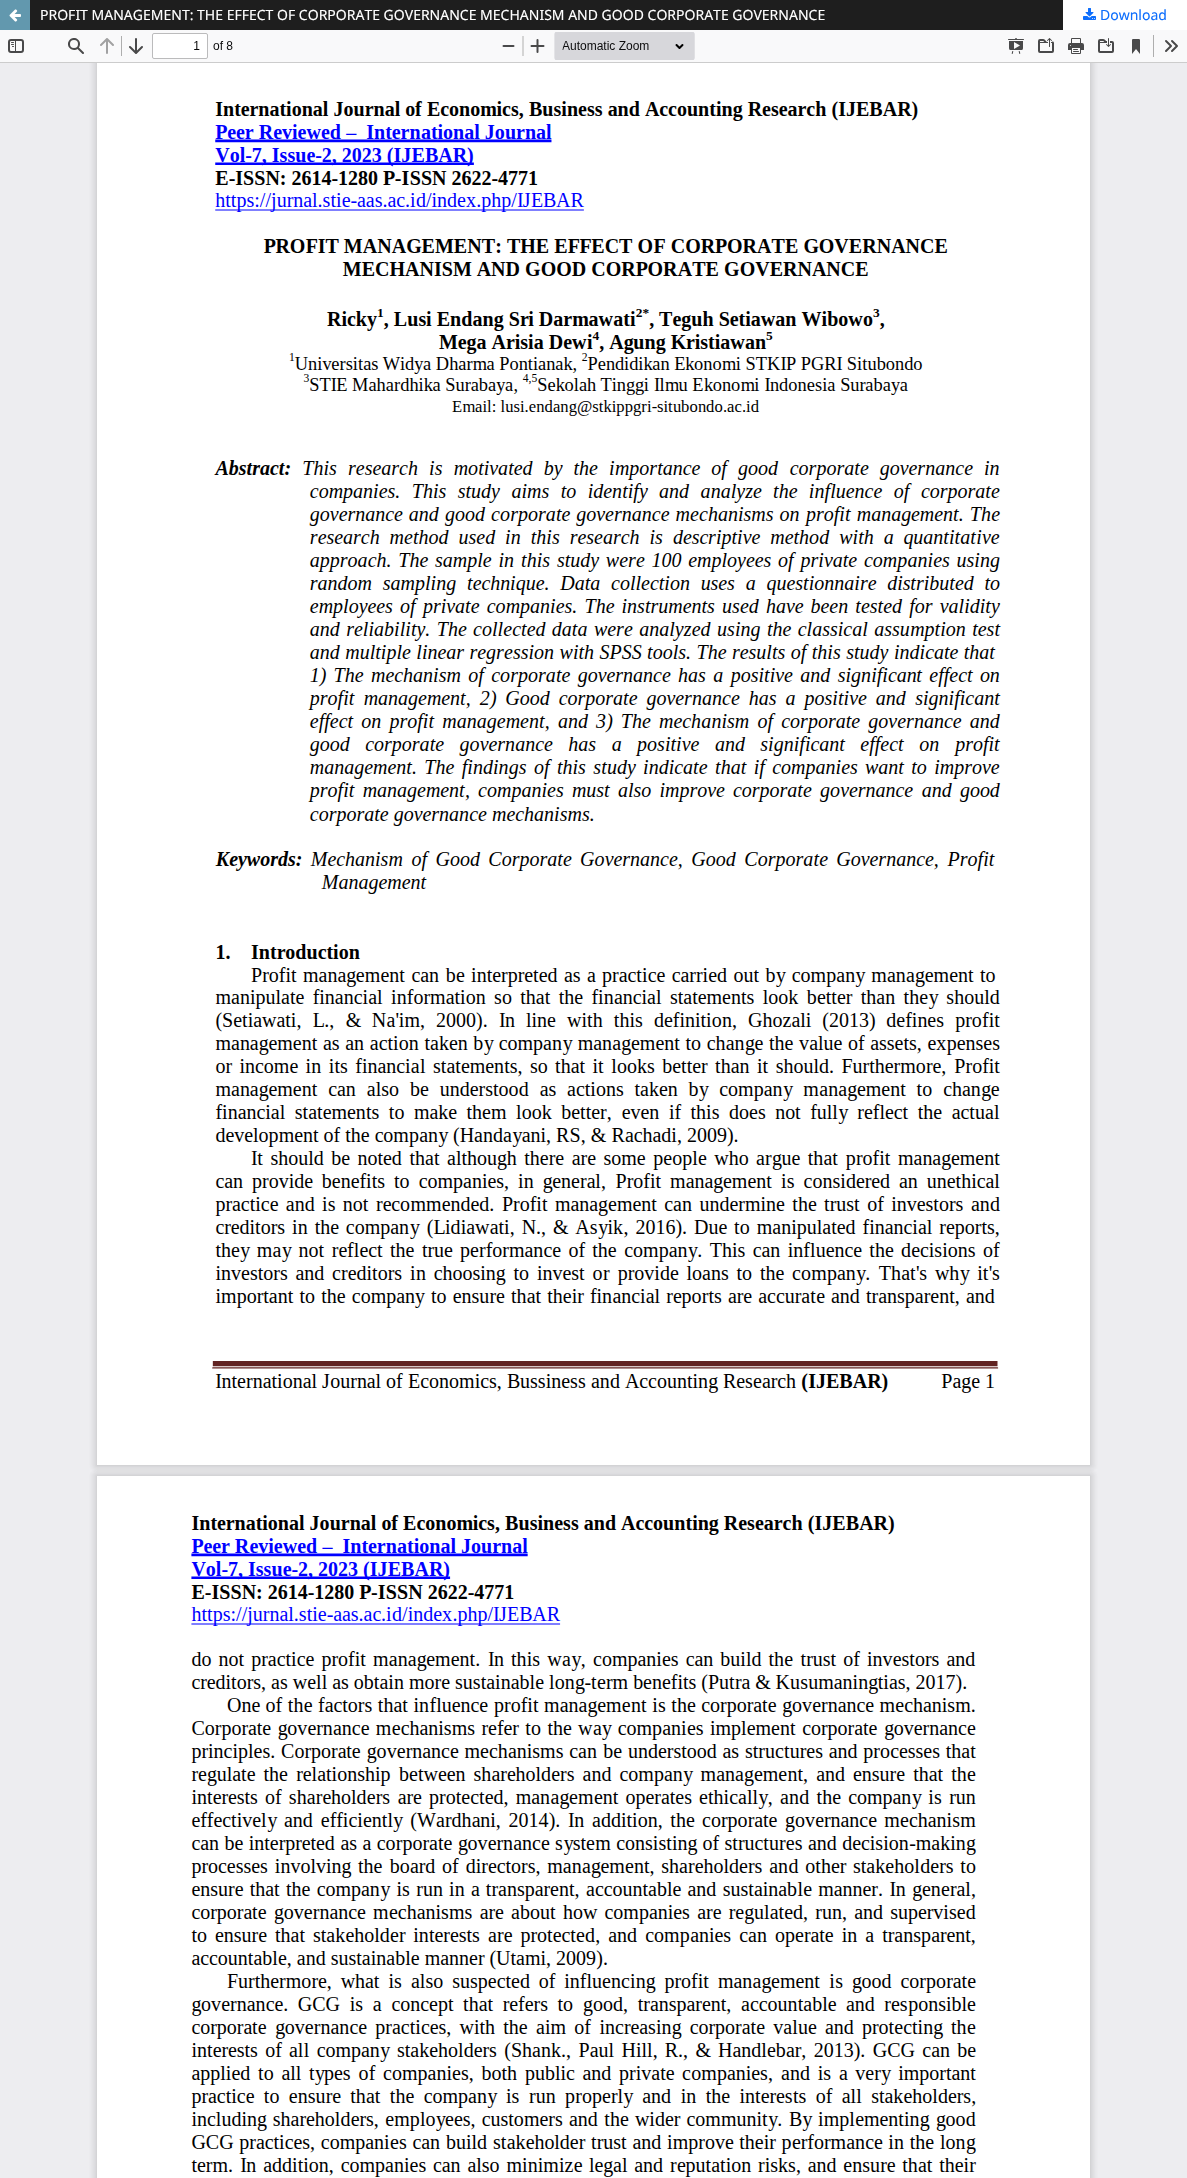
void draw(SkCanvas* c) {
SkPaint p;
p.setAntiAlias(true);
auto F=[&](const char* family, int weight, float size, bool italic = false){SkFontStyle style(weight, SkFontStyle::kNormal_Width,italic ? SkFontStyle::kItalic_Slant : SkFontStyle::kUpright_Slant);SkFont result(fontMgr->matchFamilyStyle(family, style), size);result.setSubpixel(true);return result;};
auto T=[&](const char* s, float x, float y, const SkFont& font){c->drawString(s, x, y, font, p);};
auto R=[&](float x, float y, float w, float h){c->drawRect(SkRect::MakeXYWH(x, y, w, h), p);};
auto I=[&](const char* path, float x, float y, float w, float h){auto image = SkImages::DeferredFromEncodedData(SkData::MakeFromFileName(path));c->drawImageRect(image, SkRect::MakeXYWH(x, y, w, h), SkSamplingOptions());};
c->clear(0xffffffff);
p.setColor(0xff1e1e1e);
R(30,0,1033,30);
p.setColor(0xff6298ae);
R(0,0,30,30);
I("1.png",9,9,12,13);
auto f1 = F("Noto Sans",400,14);
p.setColor(0xffffffff);
T("PROFIT MANAGEMENT: THE EFFECT OF CORPORATE GOVERNANCE MECHANISM AND GOOD CORPORATE GOVERNANCE",40,20,f1);
I("2.png",1083,8,13,12);
p.setColor(0xff0d6efd);
T("Download",1100,20,f1);
I("3.png",0,30,1187,2148);
}
